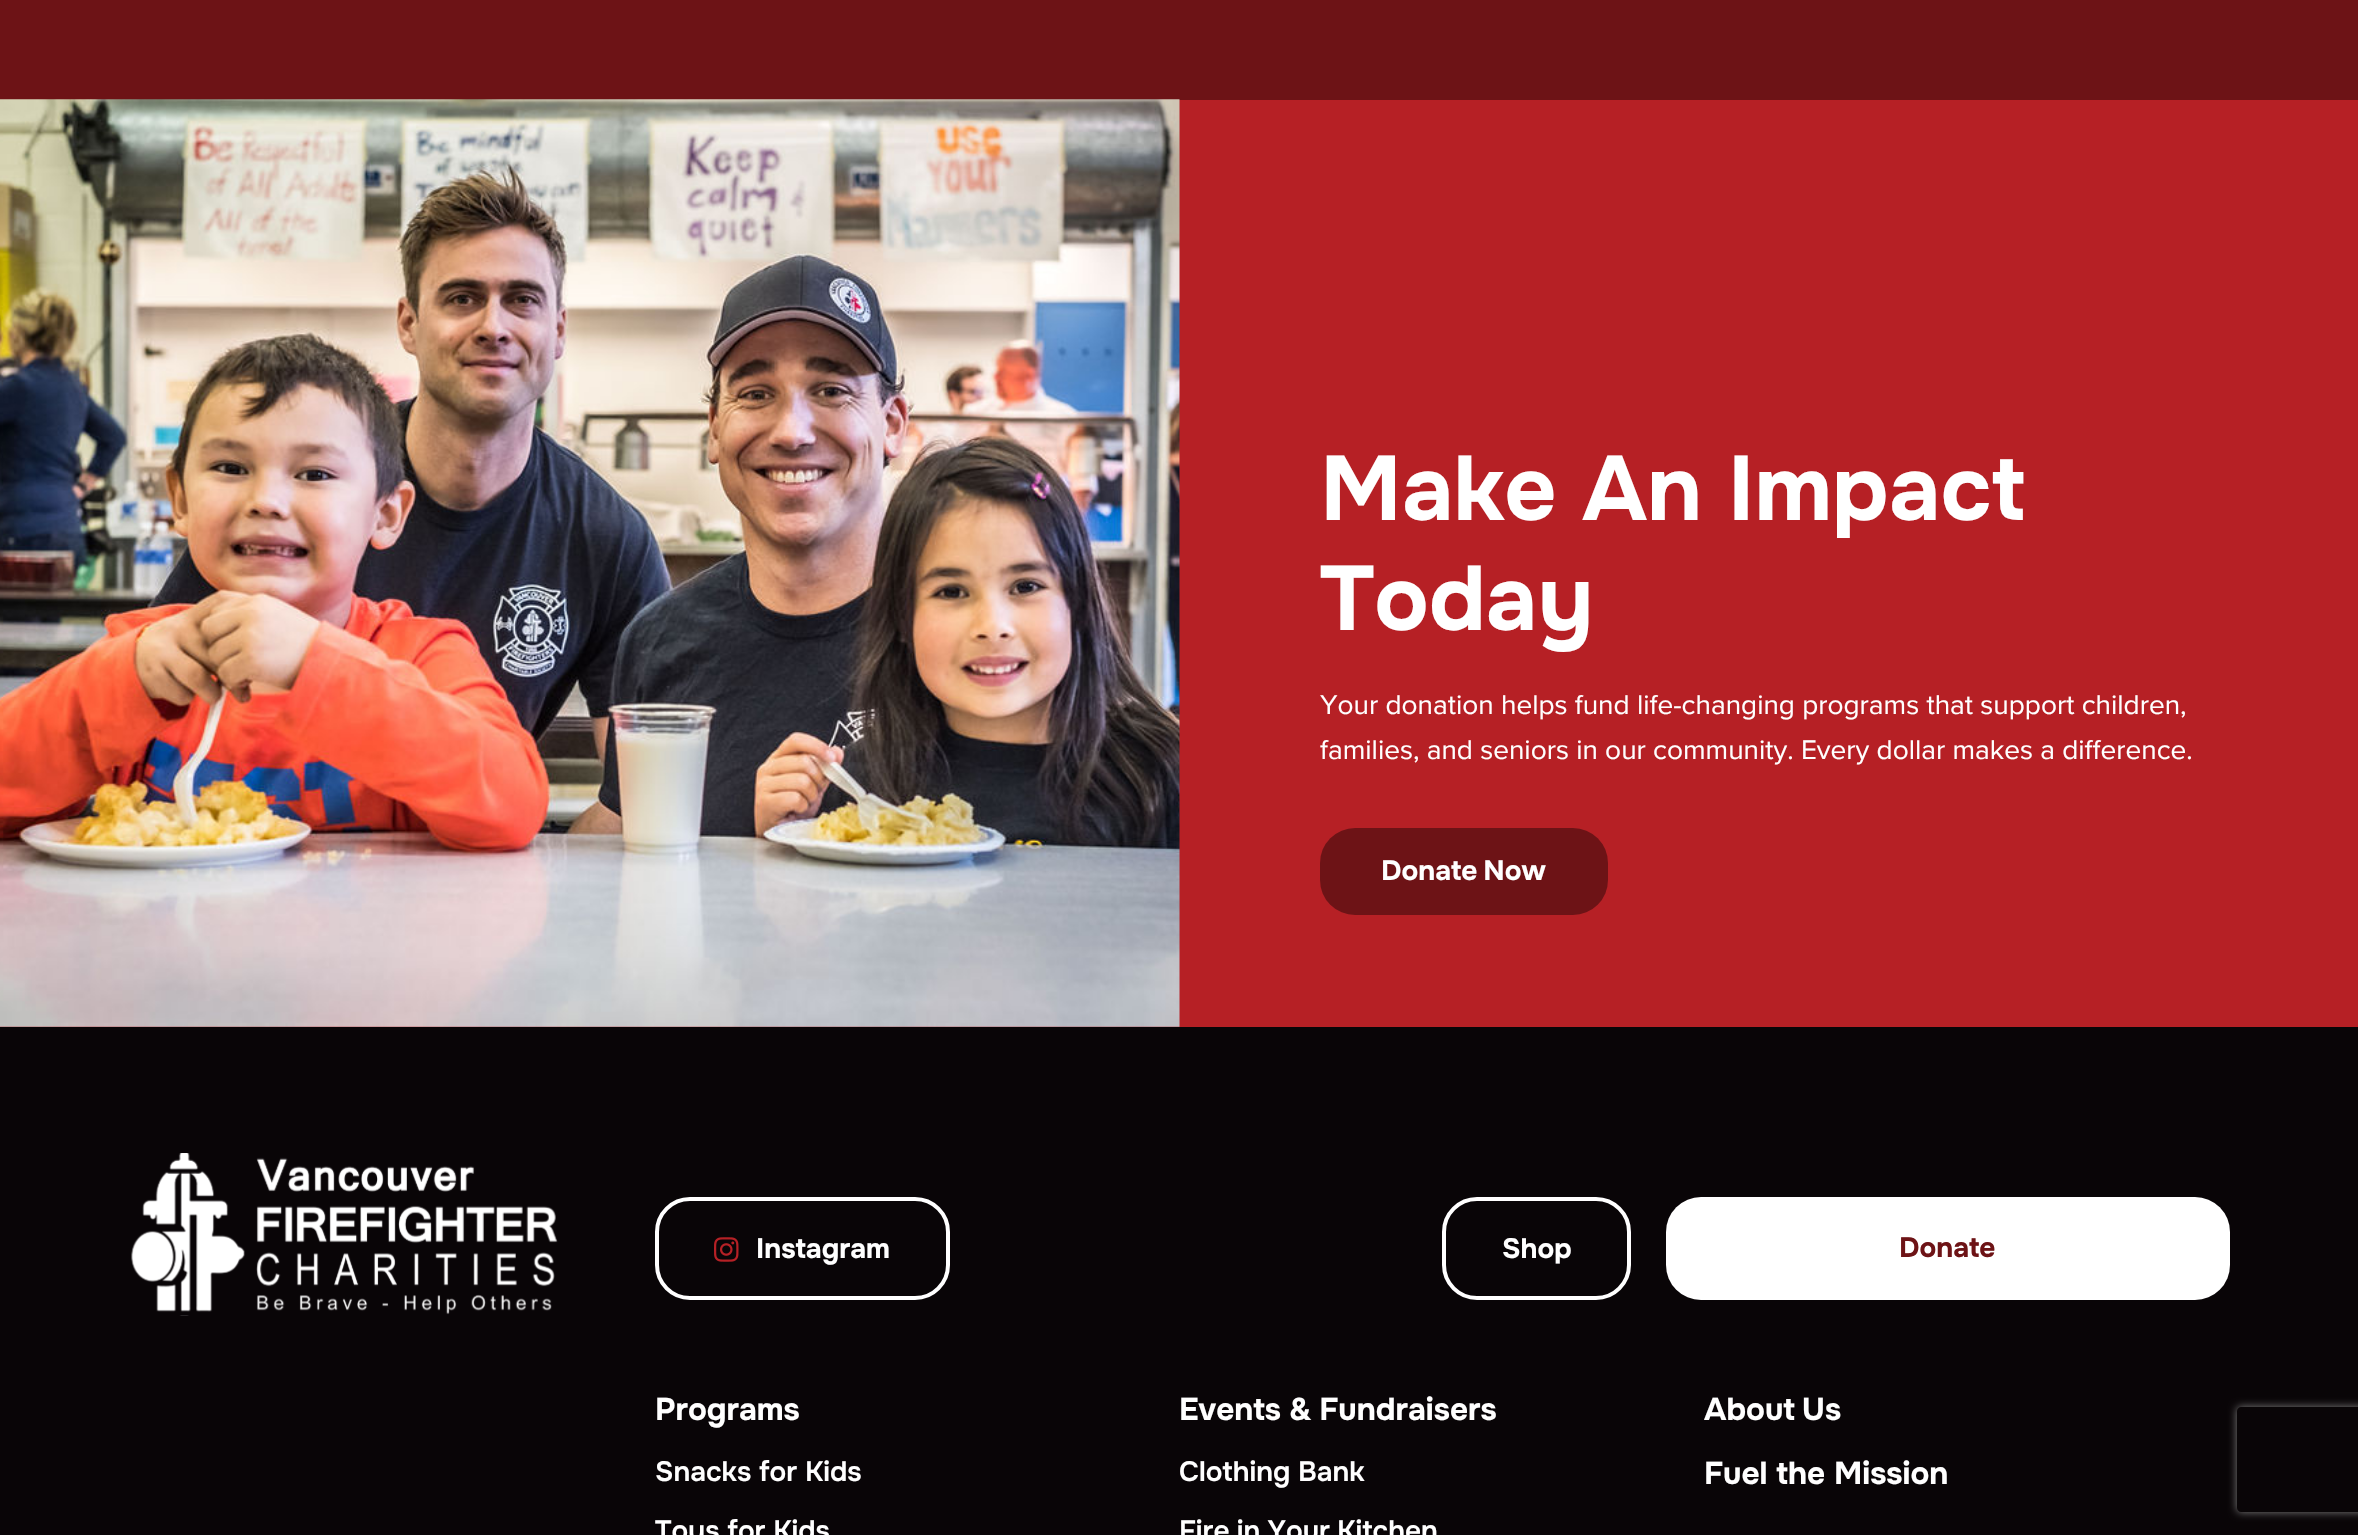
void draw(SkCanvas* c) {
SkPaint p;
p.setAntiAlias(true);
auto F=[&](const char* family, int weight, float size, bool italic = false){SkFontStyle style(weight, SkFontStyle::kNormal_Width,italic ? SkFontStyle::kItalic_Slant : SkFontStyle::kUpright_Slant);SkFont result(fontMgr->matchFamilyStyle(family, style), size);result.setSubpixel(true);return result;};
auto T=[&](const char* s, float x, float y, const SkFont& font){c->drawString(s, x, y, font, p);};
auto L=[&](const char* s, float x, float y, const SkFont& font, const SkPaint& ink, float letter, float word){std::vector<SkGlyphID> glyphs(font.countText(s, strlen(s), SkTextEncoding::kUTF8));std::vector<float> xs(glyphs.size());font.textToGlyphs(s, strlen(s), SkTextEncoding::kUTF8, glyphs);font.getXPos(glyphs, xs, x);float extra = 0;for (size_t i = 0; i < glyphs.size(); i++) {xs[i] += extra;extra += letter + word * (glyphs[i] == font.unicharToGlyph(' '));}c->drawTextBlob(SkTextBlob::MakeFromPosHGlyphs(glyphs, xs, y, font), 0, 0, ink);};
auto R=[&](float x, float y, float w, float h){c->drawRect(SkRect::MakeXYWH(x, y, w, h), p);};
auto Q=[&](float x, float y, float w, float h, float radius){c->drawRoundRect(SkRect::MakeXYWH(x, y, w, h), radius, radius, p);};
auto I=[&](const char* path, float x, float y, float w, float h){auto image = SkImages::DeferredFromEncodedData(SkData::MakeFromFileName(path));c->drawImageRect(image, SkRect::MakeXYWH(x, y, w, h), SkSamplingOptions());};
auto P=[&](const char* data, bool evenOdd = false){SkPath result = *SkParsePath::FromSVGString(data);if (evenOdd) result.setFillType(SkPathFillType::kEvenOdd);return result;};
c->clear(0xff6d1316);
p.setColor(0xffb62025);
R(0,100,2358,927);
I("1.png",0,99,1180,928);
auto f1 = F("Onest",700,91);
p.setColor(0xffffffff);
T("Make An Impact",1320,520,f1);
T("Today",1320,630,f1);
auto f2 = F("Proxima Nova",400,28);
T("Your donation helps fund life-changing programs that support children,",1320,714,f2);
T("families, and seniors in our community. Every dollar makes a difference.",1320,759,f2);
p.setColor(0xff6d1316);
Q(1320,828,288,87,35);
auto f3 = F("Onest",700,28);
p.setColor(0xffffffff);
L("Donate Now",1381,880,f3,p,0,-2);
p.setColor(0xff090507);
R(0,1027,2358,508);
I("2.png",131,1153,427,163);
p.setStroke(true);
p.setStrokeWidth(4);
p.setColor(0xffffffff);
c->drawRoundRect(SkRect::MakeXYWH(657,1199,291,99),33,33,p);
I("3.png",714,1237,25,25);
p.setStroke(false);
T("Instagram",756,1258,f3);
p.setStroke(true);
c->drawRoundRect(SkRect::MakeXYWH(1444,1199,185,99),33,33,p);
p.setStroke(false);
T("Shop",1502,1258,f3);
Q(1666,1197,564,103,35);
p.setColor(0xff6d1316);
T("Donate",1899,1257,f3);
auto f4 = F("Onest",700,31.5);
p.setColor(0xffffffff);
T("Programs",655,1420,f4);
auto f5 = F("Onest",600,28);
T("Snacks for Kids",655,1481,f5);
T("Toys for Kids",655,1540,f5);
L("Events & Fundraisers",1179,1420,f4,p,0,-1);
T("Clothing Bank",1179,1481,f5);
L("Fire in Your Kitchen",1179,1540,f5,p,0,-.5);
L("About Us",1704,1420,f4,p,0,-2);
T("Fuel the Mission",1704,1484,f4);
c->save();
c->clipPath(P("M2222 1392h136v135h-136zm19 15h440c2 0 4 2 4 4v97c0 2-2 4-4 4h-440c-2 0-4-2-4-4v-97c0-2 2-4 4-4z",true),true);
p.setColor(0xff808080);
p.setMaskFilter(SkMaskFilter::MakeBlur(kNormal_SkBlurStyle, 4.5));
c->drawRoundRect(SkRect::MakeXYWH(2237,1407,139,105),4,4,p);
p.setMaskFilter(nullptr);
c->restore();
}
